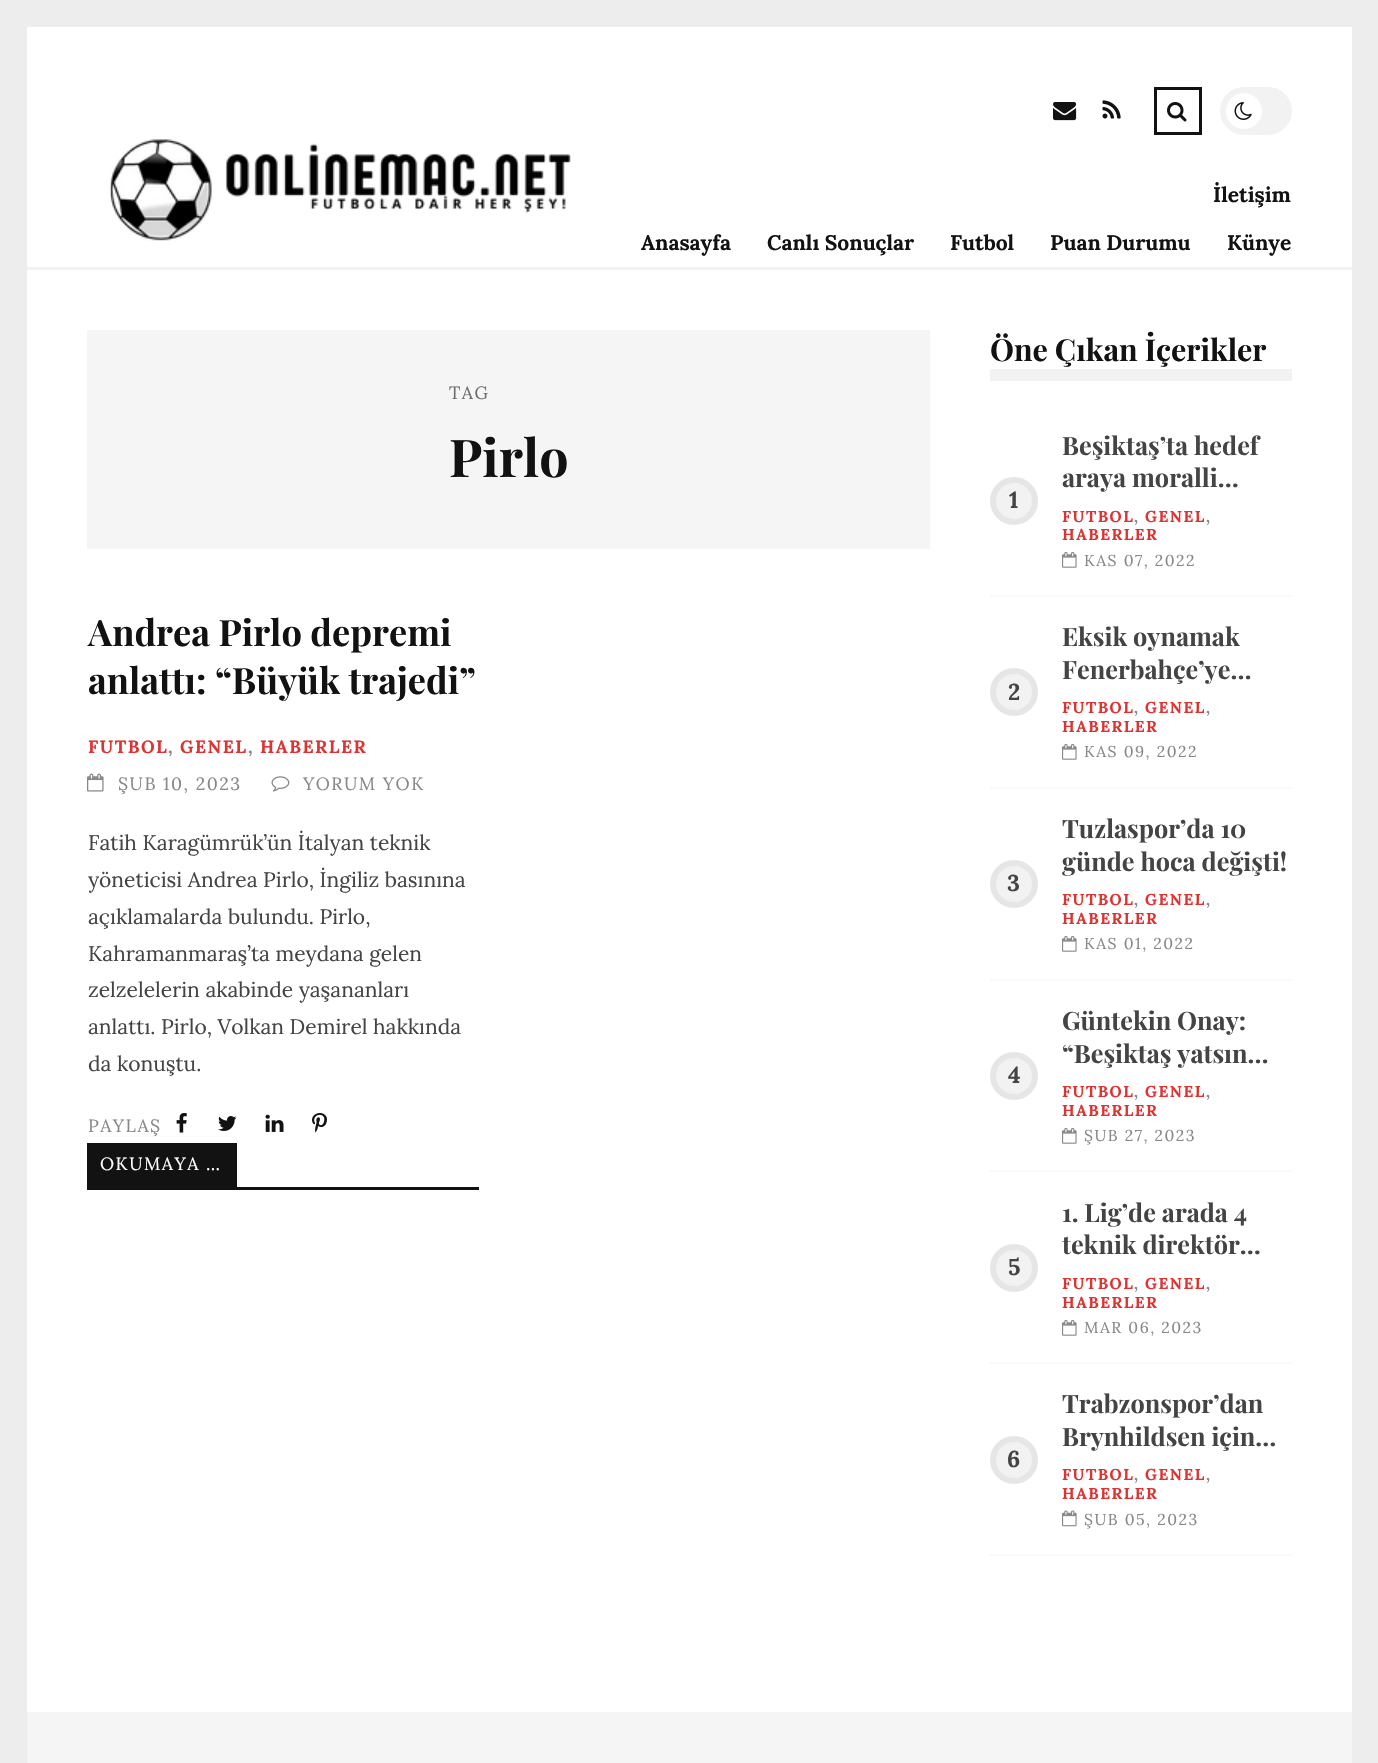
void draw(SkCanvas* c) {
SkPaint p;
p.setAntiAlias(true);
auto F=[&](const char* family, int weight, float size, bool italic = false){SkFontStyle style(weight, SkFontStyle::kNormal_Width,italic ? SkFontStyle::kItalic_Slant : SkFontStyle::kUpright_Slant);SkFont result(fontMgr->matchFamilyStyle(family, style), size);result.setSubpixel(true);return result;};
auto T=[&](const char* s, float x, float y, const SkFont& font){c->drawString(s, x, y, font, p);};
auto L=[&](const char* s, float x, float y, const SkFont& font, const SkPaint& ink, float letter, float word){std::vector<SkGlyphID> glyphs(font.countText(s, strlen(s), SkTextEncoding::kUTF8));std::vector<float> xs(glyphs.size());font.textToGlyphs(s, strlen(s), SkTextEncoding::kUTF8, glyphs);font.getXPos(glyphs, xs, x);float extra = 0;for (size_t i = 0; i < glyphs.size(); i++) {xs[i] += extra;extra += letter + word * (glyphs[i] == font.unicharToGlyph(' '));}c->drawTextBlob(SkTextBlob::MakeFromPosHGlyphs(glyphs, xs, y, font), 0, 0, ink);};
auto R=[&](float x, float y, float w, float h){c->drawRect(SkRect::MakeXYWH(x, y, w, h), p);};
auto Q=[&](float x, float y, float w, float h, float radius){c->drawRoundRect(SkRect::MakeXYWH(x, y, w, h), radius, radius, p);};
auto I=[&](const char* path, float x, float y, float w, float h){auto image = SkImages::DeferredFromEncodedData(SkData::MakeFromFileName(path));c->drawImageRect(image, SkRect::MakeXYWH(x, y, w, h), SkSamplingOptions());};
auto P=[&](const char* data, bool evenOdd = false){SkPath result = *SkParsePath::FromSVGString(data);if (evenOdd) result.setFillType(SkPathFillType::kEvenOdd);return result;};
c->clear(0xffededed);
p.setColor(0xffffffff);
R(27,27,1325,1685);
p.setColor(0xfff2f2f2);
R(27,267,1325,3);
I("1.png",109,139,462,102);
I("2.png",1053,102,24,19);
I("3.png",1102,100,19,19);
p.setStroke(true);
p.setStrokeWidth(3);
p.setColor(0xff121212);
c->drawRect(SkRect::MakeXYWH(1155.5,88.5,45,45),p);
I("4.png",1167,102,20,20);
p.setStroke(false);
p.setColor(0xfff2f2f2);
Q(1220,87,72,48,24);
p.setColor(0xffffffff);
c->drawCircle(1244,111,18,p);
I("5.png",1234,102,18,18);
auto f1 = F("Lora",700,21);
p.setColor(0xff121212);
T("İletişim",1213,202,f1);
T("Anasayfa",641,250,f1);
T("Canlı Sonuçlar",767,250,f1);
T("Futbol",950,250,f1);
T("Puan Durumu",1050,250,f1);
T("Künye",1227,250,f1);
p.setColor(0xfff5f5f5);
R(87,330,843,219);
auto f2 = F("Lora",400,17.75);
p.setColor(0xff6d6d6d);
L("TAG",449,399,f2,p,1.5,0);
auto f3 = F("Playfair Display",700,52);
p.setColor(0xff121212);
T("Pirlo",449,477,f3);
auto f4 = F("Playfair Display",700,36.25);
T("Andrea Pirlo depremi",88,646,f4);
T("anlattı: “Büyük trajedi”",88,694,f4);
auto f5 = F("Lora",700,17.75);
p.setColor(0xffdd3333);
L("FUTBOL",88,753,f5,p,1.5,0);
p.setColor(0xff888888);
L(",",168,753,f5,p,1.5,0);
p.setColor(0xffdd3333);
L("GENEL",180,753,f5,p,1.5,0);
p.setColor(0xff888888);
L(",",248,753,f5,p,1.5,0);
p.setColor(0xffdd3333);
L("HABERLER",260,753,f5,p,1.5,0);
I("6.png",87,773,17,19);
p.setColor(0xff888888);
L("ŞUB 10, 2023",118,790,f2,p,1.5,0);
I("7.png",271,776,19,16);
L("YORUM YOK",303,790,f2,p,1.5,0);
auto f6 = F("Lora",400,21);
p.setColor(0xff444444);
T("Fatih Karagümrük’ün İtalyan teknik",88,850,f6);
T("yöneticisi Andrea Pirlo, İngiliz basınına",88,887,f6);
T("açıklamalarda bulundu. Pirlo,",88,924,f6);
T("Kahramanmaraş’ta meydana gelen",88,961,f6);
T("zelzelelerin akabinde yaşananları",88,997,f6);
T("anlattı. Pirlo, Volkan Demirel hakkında",88,1034,f6);
T("da konuştu.",88,1071,f6);
p.setColor(0xff121212);
R(87,1187,392,3);
p.setColor(0xff888888);
L("PAYLAŞ",88,1132,f2,p,1.5,0);
I("8.png",176,1113,11,20);
I("9.png",218,1116,19,15);
I("10.png",265,1114,19,18);
I("11.png",312,1113,15,20);
p.setColor(0xff121212);
R(87,1143,150,44);
p.setColor(0xffffffff);
L("OKUMAYA …",100,1170,f2,p,1.5,0);
p.setColor(0xfff2f2f2);
R(990,369,302,12);
auto f7 = F("Playfair Display",700,30.25);
p.setColor(0xff121212);
T("Öne Çıkan İçerikler",990,361,f7);
p.setStroke(true);
p.setStrokeWidth(1.5);
p.setColor(0xfff2f2f2);
p.setPathEffect(SkDashPathEffect::Make({{1.5f,1.5f}}, 0));
c->drawPath(P("M990 596h301.5"),p);
p.setPathEffect(nullptr);
p.setStroke(false);
c->drawCircle(1014,501,24,p);
p.setStroke(true);
p.setStrokeWidth(6);
p.setColor(0x1a808080);
c->drawCircle(1014,501,21,p);
auto f8 = F("Lora",700,23);
p.setStroke(false);
p.setColor(0xff444444);
T("1",1009,508,f8);
auto f9 = F("Playfair Display",700,25.25);
T("Beşiktaş’ta hedef",1062,455,f9);
T("araya moralli…",1062,487,f9);
auto f10 = F("Lora",700,15.75);
p.setColor(0xffdd3333);
L("FUTBOL",1062,522,f10,p,1.5,0);
p.setColor(0xff888888);
L(",",1134,522,f10,p,1.5,0);
p.setColor(0xffdd3333);
L("GENEL",1145,522,f10,p,1.5,0);
p.setColor(0xff888888);
L(",",1206,522,f10,p,1.5,0);
p.setColor(0xffdd3333);
L("HABERLER",1062,540,f10,p,1.5,0);
I("12.png",1062,552,15,16);
auto f11 = F("Lora",400,15.75);
p.setColor(0xff888888);
L("KAS 07, 2022",1084,566,f11,p,1.5,0);
p.setStroke(true);
p.setStrokeWidth(1.5);
p.setColor(0xfff2f2f2);
p.setPathEffect(SkDashPathEffect::Make({{1.5f,1.5f}}, 0));
c->drawPath(P("M990 788h301.5"),p);
p.setPathEffect(nullptr);
p.setStroke(false);
c->drawCircle(1014,692,24,p);
p.setStroke(true);
p.setStrokeWidth(6);
p.setColor(0x1a808080);
c->drawCircle(1014,692,21,p);
p.setStroke(false);
p.setColor(0xff444444);
T("2",1008,700,f8);
T("Eksik oynamak",1062,646,f9);
T("Fenerbahçe’ye…",1062,679,f9);
p.setColor(0xffdd3333);
L("FUTBOL",1062,713,f10,p,1.5,0);
p.setColor(0xff888888);
L(",",1134,713,f10,p,1.5,0);
p.setColor(0xffdd3333);
L("GENEL",1145,713,f10,p,1.5,0);
p.setColor(0xff888888);
L(",",1206,713,f10,p,1.5,0);
p.setColor(0xffdd3333);
L("HABERLER",1062,732,f10,p,1.5,0);
I("12.png",1062,744,15,16);
p.setColor(0xff888888);
L("KAS 09, 2022",1084,757,f11,p,1.5,0);
p.setStroke(true);
p.setStrokeWidth(1.5);
p.setColor(0xfff2f2f2);
p.setPathEffect(SkDashPathEffect::Make({{1.5f,1.5f}}, 0));
c->drawPath(P("M990 980h301.5"),p);
p.setPathEffect(nullptr);
p.setStroke(false);
c->drawCircle(1014,884,24,p);
p.setStroke(true);
p.setStrokeWidth(6);
p.setColor(0x1a808080);
c->drawCircle(1014,884,21,p);
p.setStroke(false);
p.setColor(0xff444444);
T("3",1007,891,f8);
T("Tuzlaspor’da 10",1062,838,f9);
T("günde hoca değişti!",1062,871,f9);
p.setColor(0xffdd3333);
L("FUTBOL",1062,905,f10,p,1.5,0);
p.setColor(0xff888888);
L(",",1134,905,f10,p,1.5,0);
p.setColor(0xffdd3333);
L("GENEL",1145,905,f10,p,1.5,0);
p.setColor(0xff888888);
L(",",1206,905,f10,p,1.5,0);
p.setColor(0xffdd3333);
L("HABERLER",1062,924,f10,p,1.5,0);
I("12.png",1062,936,15,16);
p.setColor(0xff888888);
L("KAS 01, 2022",1084,949,f11,p,1.5,0);
p.setStroke(true);
p.setStrokeWidth(1.5);
p.setColor(0xfff2f2f2);
p.setPathEffect(SkDashPathEffect::Make({{1.5f,1.5f}}, 0));
c->drawPath(P("M990 1171h301.5"),p);
p.setPathEffect(nullptr);
p.setStroke(false);
c->drawCircle(1014,1076,24,p);
p.setStroke(true);
p.setStrokeWidth(6);
p.setColor(0x1a808080);
c->drawCircle(1014,1076,21,p);
p.setStroke(false);
p.setColor(0xff444444);
T("4",1008,1083,f8);
T("Güntekin Onay:",1062,1030,f9);
T("“Beşiktaş yatsın…",1062,1063,f9);
p.setColor(0xffdd3333);
L("FUTBOL",1062,1097,f10,p,1.5,0);
p.setColor(0xff888888);
L(",",1134,1097,f10,p,1.5,0);
p.setColor(0xffdd3333);
L("GENEL",1145,1097,f10,p,1.5,0);
p.setColor(0xff888888);
L(",",1206,1097,f10,p,1.5,0);
p.setColor(0xffdd3333);
L("HABERLER",1062,1116,f10,p,1.5,0);
I("12.png",1062,1128,15,16);
p.setColor(0xff888888);
L("ŞUB 27, 2023",1084,1141,f11,p,1.5,0);
p.setStroke(true);
p.setStrokeWidth(1.5);
p.setColor(0xfff2f2f2);
p.setPathEffect(SkDashPathEffect::Make({{1.5f,1.5f}}, 0));
c->drawPath(P("M990 1363h301.5"),p);
p.setPathEffect(nullptr);
p.setStroke(false);
c->drawCircle(1014,1268,24,p);
p.setStroke(true);
p.setStrokeWidth(6);
p.setColor(0x1a808080);
c->drawCircle(1014,1268,21,p);
p.setStroke(false);
p.setColor(0xff444444);
T("5",1008,1275,f8);
T("1. Lig’de arada 4",1062,1222,f9);
T("teknik direktör…",1062,1254,f9);
p.setColor(0xffdd3333);
L("FUTBOL",1062,1289,f10,p,1.5,0);
p.setColor(0xff888888);
L(",",1134,1289,f10,p,1.5,0);
p.setColor(0xffdd3333);
L("GENEL",1145,1289,f10,p,1.5,0);
p.setColor(0xff888888);
L(",",1206,1289,f10,p,1.5,0);
p.setColor(0xffdd3333);
L("HABERLER",1062,1308,f10,p,1.5,0);
I("12.png",1062,1320,15,16);
p.setColor(0xff888888);
L("MAR 06, 2023",1084,1333,f11,p,1.5,0);
p.setStroke(true);
p.setStrokeWidth(1.5);
p.setColor(0xfff2f2f2);
p.setPathEffect(SkDashPathEffect::Make({{1.5f,1.5f}}, 0));
c->drawPath(P("M990 1555h301.5"),p);
p.setPathEffect(nullptr);
p.setStroke(false);
c->drawCircle(1014,1460,24,p);
p.setStroke(true);
p.setStrokeWidth(6);
p.setColor(0x1a808080);
c->drawCircle(1014,1460,21,p);
p.setStroke(false);
p.setColor(0xff444444);
T("6",1007,1467,f8);
T("Trabzonspor’dan",1062,1413,f9);
T("Brynhildsen için…",1062,1446,f9);
p.setColor(0xffdd3333);
L("FUTBOL",1062,1480,f10,p,1.5,0);
p.setColor(0xff888888);
L(",",1134,1480,f10,p,1.5,0);
p.setColor(0xffdd3333);
L("GENEL",1145,1480,f10,p,1.5,0);
p.setColor(0xff888888);
L(",",1206,1480,f10,p,1.5,0);
p.setColor(0xffdd3333);
L("HABERLER",1062,1499,f10,p,1.5,0);
I("13.png",1062,1510,15,17);
p.setColor(0xff888888);
L("ŞUB 05, 2023",1084,1525,f11,p,1.5,0);
p.setColor(0xfff5f5f5);
R(27,1712,1325,51);
}
